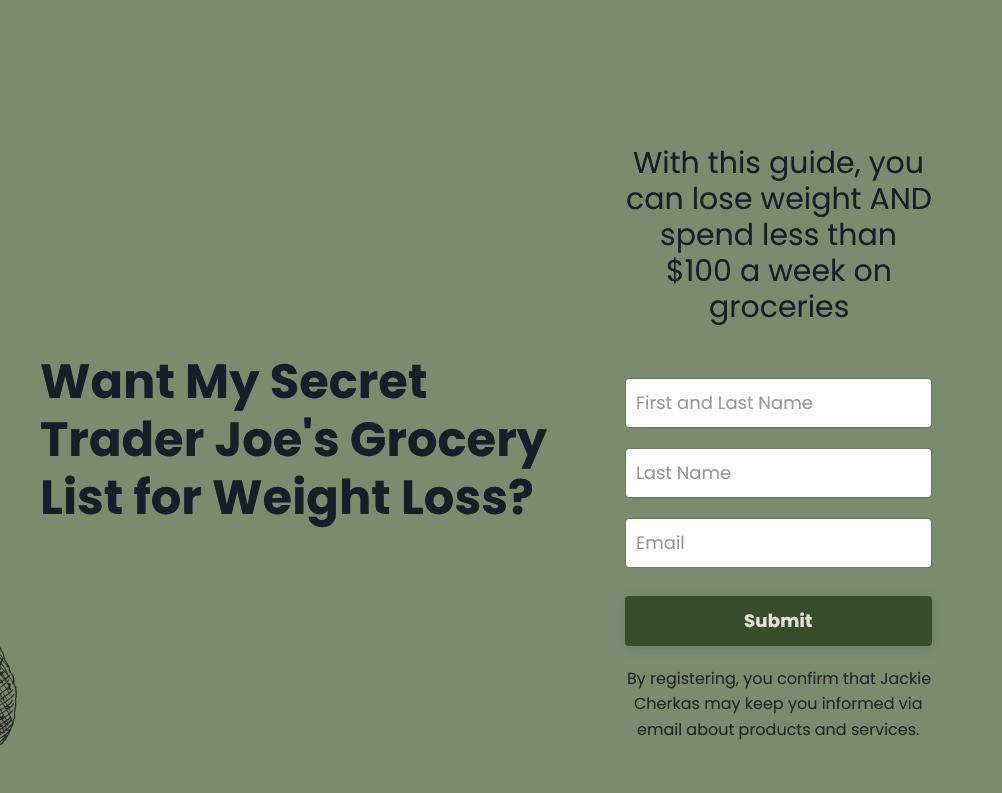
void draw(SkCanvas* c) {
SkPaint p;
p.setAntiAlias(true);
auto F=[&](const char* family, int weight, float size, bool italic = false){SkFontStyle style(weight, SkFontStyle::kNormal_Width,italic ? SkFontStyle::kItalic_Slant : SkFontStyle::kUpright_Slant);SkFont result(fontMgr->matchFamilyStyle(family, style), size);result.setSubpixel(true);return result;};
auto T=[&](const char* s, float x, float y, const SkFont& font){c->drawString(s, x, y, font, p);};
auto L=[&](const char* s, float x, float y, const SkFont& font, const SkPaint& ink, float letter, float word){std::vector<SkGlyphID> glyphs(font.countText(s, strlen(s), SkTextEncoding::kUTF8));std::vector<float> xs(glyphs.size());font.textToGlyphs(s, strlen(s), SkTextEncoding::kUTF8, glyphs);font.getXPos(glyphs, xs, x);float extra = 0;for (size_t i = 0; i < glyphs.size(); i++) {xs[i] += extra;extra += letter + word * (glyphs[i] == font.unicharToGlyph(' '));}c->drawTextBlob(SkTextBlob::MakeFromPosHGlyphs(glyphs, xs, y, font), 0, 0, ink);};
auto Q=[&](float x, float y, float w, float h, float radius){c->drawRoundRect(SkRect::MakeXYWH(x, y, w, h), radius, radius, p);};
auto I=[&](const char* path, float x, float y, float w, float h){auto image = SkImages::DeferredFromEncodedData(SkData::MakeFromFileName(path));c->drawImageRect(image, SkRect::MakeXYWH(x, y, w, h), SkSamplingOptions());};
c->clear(0xffffffff);
I("1.png",0,0,1002,793);
auto f1 = F("Poppins",700,48);
p.setColor(0xff161e2a);
T("Want My Secret",40,398,f1);
T("Trader Joe's Grocery",40,456,f1);
T("List for Weight Loss?",40,514,f1);
auto f2 = F("Poppins",400,30);
T("With this guide, you",633,173,f2);
T("can lose weight AND",626,209,f2);
T("spend less than",660,245,f2);
T("$100 a week on",666,281,f2);
T("groceries",709,317,f2);
p.setColor(0xffffffff);
Q(626,379,305,48,3);
p.setStroke(true);
p.setStrokeWidth(1);
p.setColor(0x26000000);
c->drawRoundRect(SkRect::MakeXYWH(625.5,378.5,306,49),3.5,3.5,p);
auto f3 = F("Poppins",400,18);
p.setStroke(false);
p.setColor(0xff999999);
T("First and Last Name",636,409,f3);
p.setColor(0xffffffff);
Q(626,449,305,48,3);
p.setStroke(true);
p.setColor(0x26000000);
c->drawRoundRect(SkRect::MakeXYWH(625.5,448.5,306,49),3.5,3.5,p);
p.setStroke(false);
p.setColor(0xff999999);
T("Last Name",636,479,f3);
p.setColor(0xffffffff);
Q(626,519,305,48,3);
p.setStroke(true);
p.setColor(0x26000000);
c->drawRoundRect(SkRect::MakeXYWH(625.5,518.5,306,49),3.5,3.5,p);
p.setStroke(false);
p.setColor(0xff999999);
T("Email",636,549,f3);
p.setColor(0x1a000000);
p.setMaskFilter(SkMaskFilter::MakeBlur(kNormal_SkBlurStyle, 5));
c->drawRoundRect(SkRect::MakeXYWH(625,598,307,50),4,4,p);
p.setMaskFilter(nullptr);
p.setColor(0xff3a4d2b);
c->drawRoundRect(SkRect::MakeXYWH(626,597,305,48),3,3,p);
p.setStroke(true);
p.setStrokeWidth(2);
c->drawRoundRect(SkRect::MakeXYWH(626,597,305,48),3,3,p);
auto f4 = F("Poppins",700,18);
p.setStroke(false);
p.setColor(0xffe1e1dc);
L("Submit",744,627,f4,p,.25,0);
auto f5 = F("Poppins",400,16);
p.setColor(0xff232627);
T("By registering, you confirm that Jackie",627,684,f5);
T("Cherkas may keep you informed via",634,709,f5);
T("email about products and services.",637,735,f5);
}
